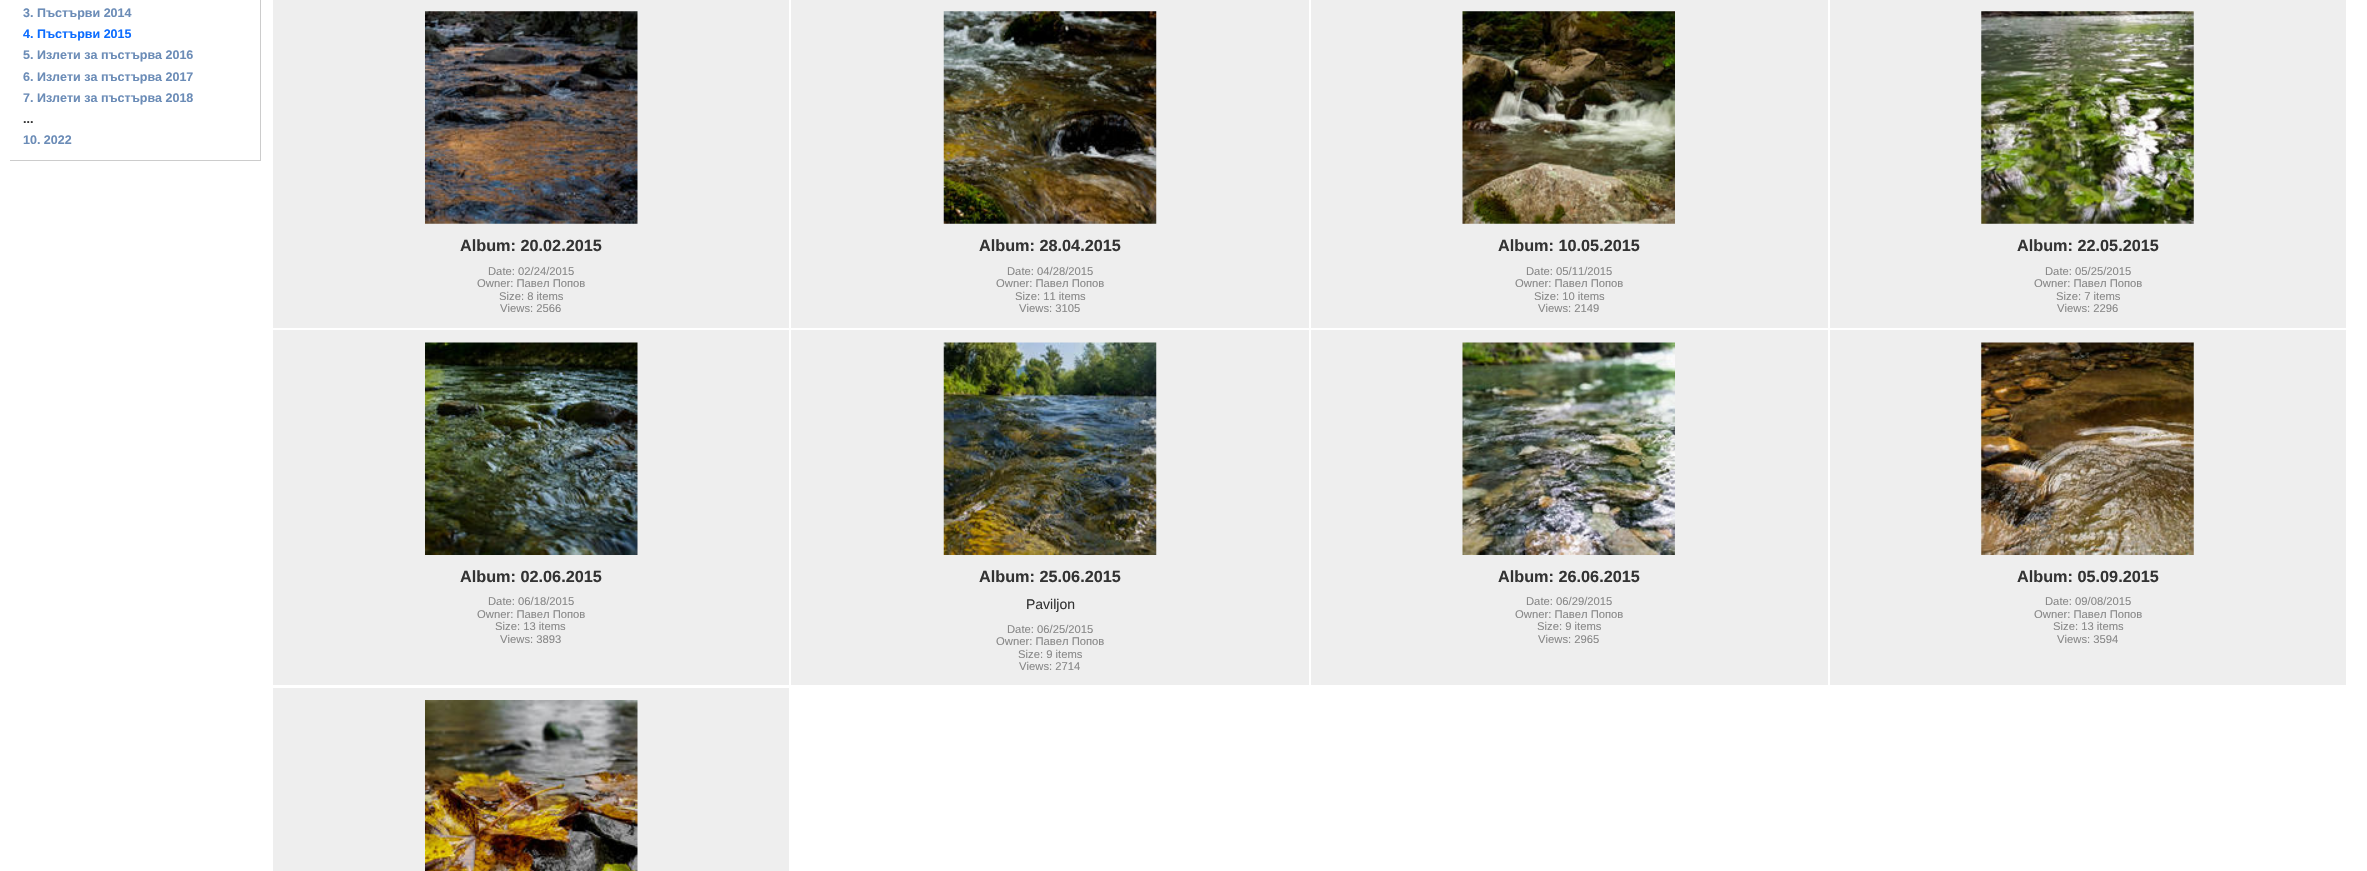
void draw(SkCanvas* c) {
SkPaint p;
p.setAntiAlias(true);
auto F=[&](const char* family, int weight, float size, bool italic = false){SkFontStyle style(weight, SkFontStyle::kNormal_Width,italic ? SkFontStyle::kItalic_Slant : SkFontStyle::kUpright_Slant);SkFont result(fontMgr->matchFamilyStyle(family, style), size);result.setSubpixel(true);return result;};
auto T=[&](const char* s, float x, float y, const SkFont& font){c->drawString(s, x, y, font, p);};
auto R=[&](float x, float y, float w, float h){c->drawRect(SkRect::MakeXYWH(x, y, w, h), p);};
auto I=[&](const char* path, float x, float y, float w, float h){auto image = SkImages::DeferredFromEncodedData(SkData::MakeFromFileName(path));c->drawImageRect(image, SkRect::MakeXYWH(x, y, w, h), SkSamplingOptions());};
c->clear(0xffffffff);
p.setColor(0xffcccccc);
R(260,0,1,161);
R(10,160,250,1);
auto f1 = F("Liberation Sans",700,12.5);
p.setColor(0xff6b8cb7);
T("3. Пъстърви 2014",23,17,f1);
p.setColor(0xff0b6cff);
T("4. Пъстърви 2015",23,38,f1);
p.setColor(0xff6b8cb7);
T("5. Излети за пъстърва 2016",23,59,f1);
T("6. Излети за пъстърва 2017",23,81,f1);
T("7. Излети за пъстърва 2018",23,102,f1);
p.setColor(0xff333333);
T("...",23,123,f1);
p.setColor(0xff6b8cb7);
T("10. 2022",23,144,f1);
p.setColor(0xffeeeeee);
R(273,0,516,328);
I("1.png",425,11,213,213);
auto f2 = F("Liberation Sans",700,16.25);
p.setColor(0xff333333);
T("Album: 20.02.2015",460,251,f2);
auto f3 = F("Liberation Sans",400,11.25);
p.setColor(0xff888888);
T("Date: 02/24/2015",488,275,f3);
T("Owner: Павел Попов",477,287,f3);
T("Size: 8 items",499,300,f3);
T("Views: 2566",500,312,f3);
p.setColor(0xffeeeeee);
R(791,0,518,328);
I("2.png",943,11,214,213);
p.setColor(0xff333333);
T("Album: 28.04.2015",979,251,f2);
p.setColor(0xff888888);
T("Date: 04/28/2015",1007,275,f3);
T("Owner: Павел Попов",996,287,f3);
T("Size: 11 items",1015,300,f3);
T("Views: 3105",1019,312,f3);
p.setColor(0xffeeeeee);
R(1311,0,517,328);
I("3.png",1462,11,213,213);
p.setColor(0xff333333);
T("Album: 10.05.2015",1498,251,f2);
p.setColor(0xff888888);
T("Date: 05/11/2015",1526,275,f3);
T("Owner: Павел Попов",1515,287,f3);
T("Size: 10 items",1534,300,f3);
T("Views: 2149",1538,312,f3);
p.setColor(0xffeeeeee);
R(1830,0,516,328);
I("4.png",1981,11,213,213);
p.setColor(0xff333333);
T("Album: 22.05.2015",2017,251,f2);
p.setColor(0xff888888);
T("Date: 05/25/2015",2045,275,f3);
T("Owner: Павел Попов",2034,287,f3);
T("Size: 7 items",2056,300,f3);
T("Views: 2296",2057,312,f3);
p.setColor(0xffeeeeee);
R(273,330,516,355);
I("5.png",425,342,213,213);
p.setColor(0xff333333);
T("Album: 02.06.2015",460,582,f2);
p.setColor(0xff888888);
T("Date: 06/18/2015",488,605,f3);
T("Owner: Павел Попов",477,618,f3);
T("Size: 13 items",495,630,f3);
T("Views: 3893",500,643,f3);
p.setColor(0xffeeeeee);
R(791,330,518,355);
I("6.png",943,342,214,213);
p.setColor(0xff333333);
T("Album: 25.06.2015",979,582,f2);
auto f4 = F("Liberation Sans",400,14);
T("Paviljon",1026,609,f4);
p.setColor(0xff888888);
T("Date: 06/25/2015",1007,633,f3);
T("Owner: Павел Попов",996,645,f3);
T("Size: 9 items",1018,658,f3);
T("Views: 2714",1019,670,f3);
p.setColor(0xffeeeeee);
R(1311,330,517,355);
I("7.png",1462,342,213,213);
p.setColor(0xff333333);
T("Album: 26.06.2015",1498,582,f2);
p.setColor(0xff888888);
T("Date: 06/29/2015",1526,605,f3);
T("Owner: Павел Попов",1515,618,f3);
T("Size: 9 items",1537,630,f3);
T("Views: 2965",1538,643,f3);
p.setColor(0xffeeeeee);
R(1830,330,516,355);
I("8.png",1981,342,213,213);
p.setColor(0xff333333);
T("Album: 05.09.2015",2017,582,f2);
p.setColor(0xff888888);
T("Date: 09/08/2015",2045,605,f3);
T("Owner: Павел Попов",2034,618,f3);
T("Size: 13 items",2053,630,f3);
T("Views: 3594",2057,643,f3);
p.setColor(0xffeeeeee);
R(273,688,516,183);
I("9.png",425,700,213,171);
}
